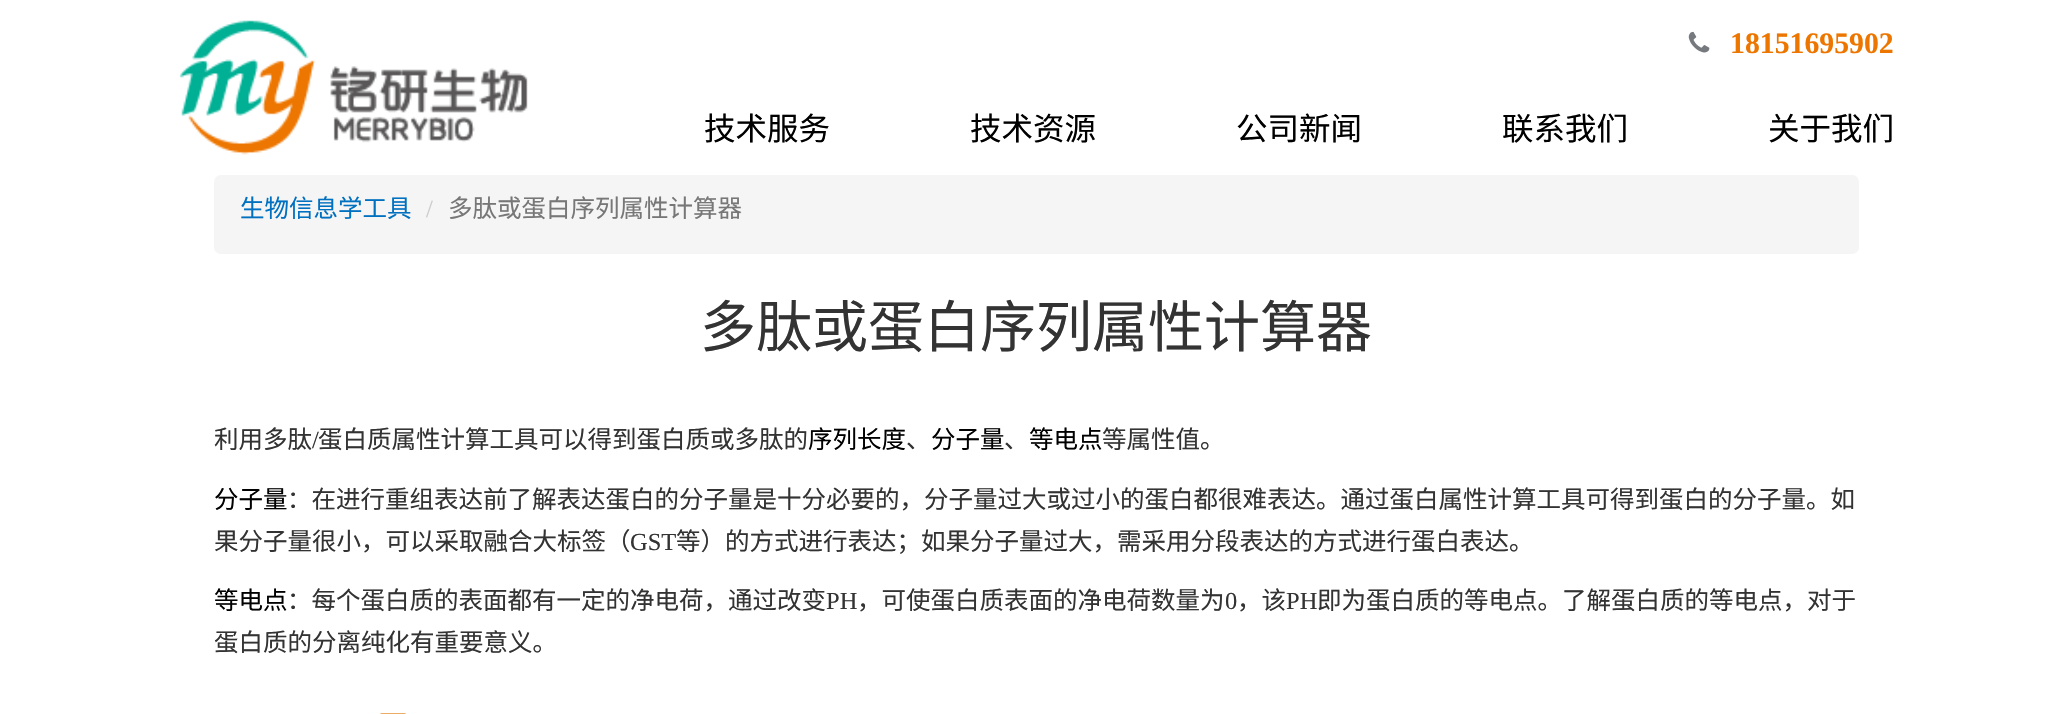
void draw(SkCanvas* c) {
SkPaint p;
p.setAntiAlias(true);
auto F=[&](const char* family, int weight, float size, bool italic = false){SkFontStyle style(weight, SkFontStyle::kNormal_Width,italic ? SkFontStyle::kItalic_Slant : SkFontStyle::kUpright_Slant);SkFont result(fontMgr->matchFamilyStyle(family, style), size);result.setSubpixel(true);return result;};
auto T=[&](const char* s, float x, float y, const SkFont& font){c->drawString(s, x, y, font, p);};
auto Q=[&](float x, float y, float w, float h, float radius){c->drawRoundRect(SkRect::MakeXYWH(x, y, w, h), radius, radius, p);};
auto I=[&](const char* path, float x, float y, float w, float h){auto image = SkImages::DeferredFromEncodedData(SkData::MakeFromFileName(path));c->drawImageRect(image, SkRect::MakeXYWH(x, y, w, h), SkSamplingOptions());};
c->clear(0xffffffff);
I("1.png",179,20,349,135);
I("2.png",1688,31,22,22);
auto f1 = F("Liberation Serif",700,29.75);
p.setColor(0xffed7600);
T("18151695902",1730,53,f1);
auto f2 = F("Noto Sans CJK SC",400,31.5);
p.setColor(0xff000000);
T("技术服务",704,140,f2);
T("技术资源",970,140,f2);
T("公司新闻",1236,140,f2);
T("联系我们",1502,140,f2);
T("关于我们",1768,140,f2);
p.setColor(0xfff5f5f5);
Q(214,175,1645,79,7);
auto f3 = F("Noto Sans CJK SC",400,24.5);
p.setColor(0xff0070c0);
T("生物信息学工具",240,217,f3);
auto f4 = F("Liberation Serif",400,24.5);
p.setColor(0xffcccccc);
T("/",426,217,f4);
p.setColor(0xff777777);
T("多肽或蛋白序列属性计算器",448,217,f3);
auto f5 = F("Noto Sans CJK SC",400,56);
p.setColor(0xff333333);
T("多肽或蛋白序列属性计算器",700,347,f5);
T("利用多肽",214,448,f3);
T("/",312,448,f4);
T("蛋白质属性计算工具可以得到蛋白质或多肽的",318,448,f3);
p.setColor(0xff000000);
T("序列长度",808,448,f3);
p.setColor(0xff333333);
T("、",906,448,f3);
p.setColor(0xff000000);
T("分子量",931,448,f3);
p.setColor(0xff333333);
T("、",1004,448,f3);
p.setColor(0xff000000);
T("等电点",1029,448,f3);
p.setColor(0xff333333);
T("等属性值。",1102,448,f3);
p.setColor(0xff000000);
T("分子量",214,508,f3);
p.setColor(0xff333333);
T("：在进行重组表达前了解表达蛋白的分子量是十分必要的，分子量过大或过小的蛋白都很难表达。通过蛋白属性计算工具可得到蛋白的分子量。如",287,508,f3);
T("果分子量很小，可以采取融合大标签（",214,550,f3);
T("GST",630,550,f4);
T("等）的方式进行表达；如果分子量过大，需采用分段表达的方式进行蛋白表达。",676,550,f3);
p.setColor(0xff000000);
T("等电点",214,609,f3);
p.setColor(0xff333333);
T("：每个蛋白质的表面都有一定的净电荷，通过改变",287,609,f3);
T("PH",826,609,f4);
T("，可使蛋白质表面的净电荷数量为",857,609,f3);
T("0",1225,609,f4);
T("，该",1237,609,f3);
T("PH",1286,609,f4);
T("即为蛋白质的等电点。了解蛋白质的等电点，对于",1317,609,f3);
T("蛋白质的分离纯化有重要意义。",214,651,f3);
I("3.png",380,713,26,1);
}
